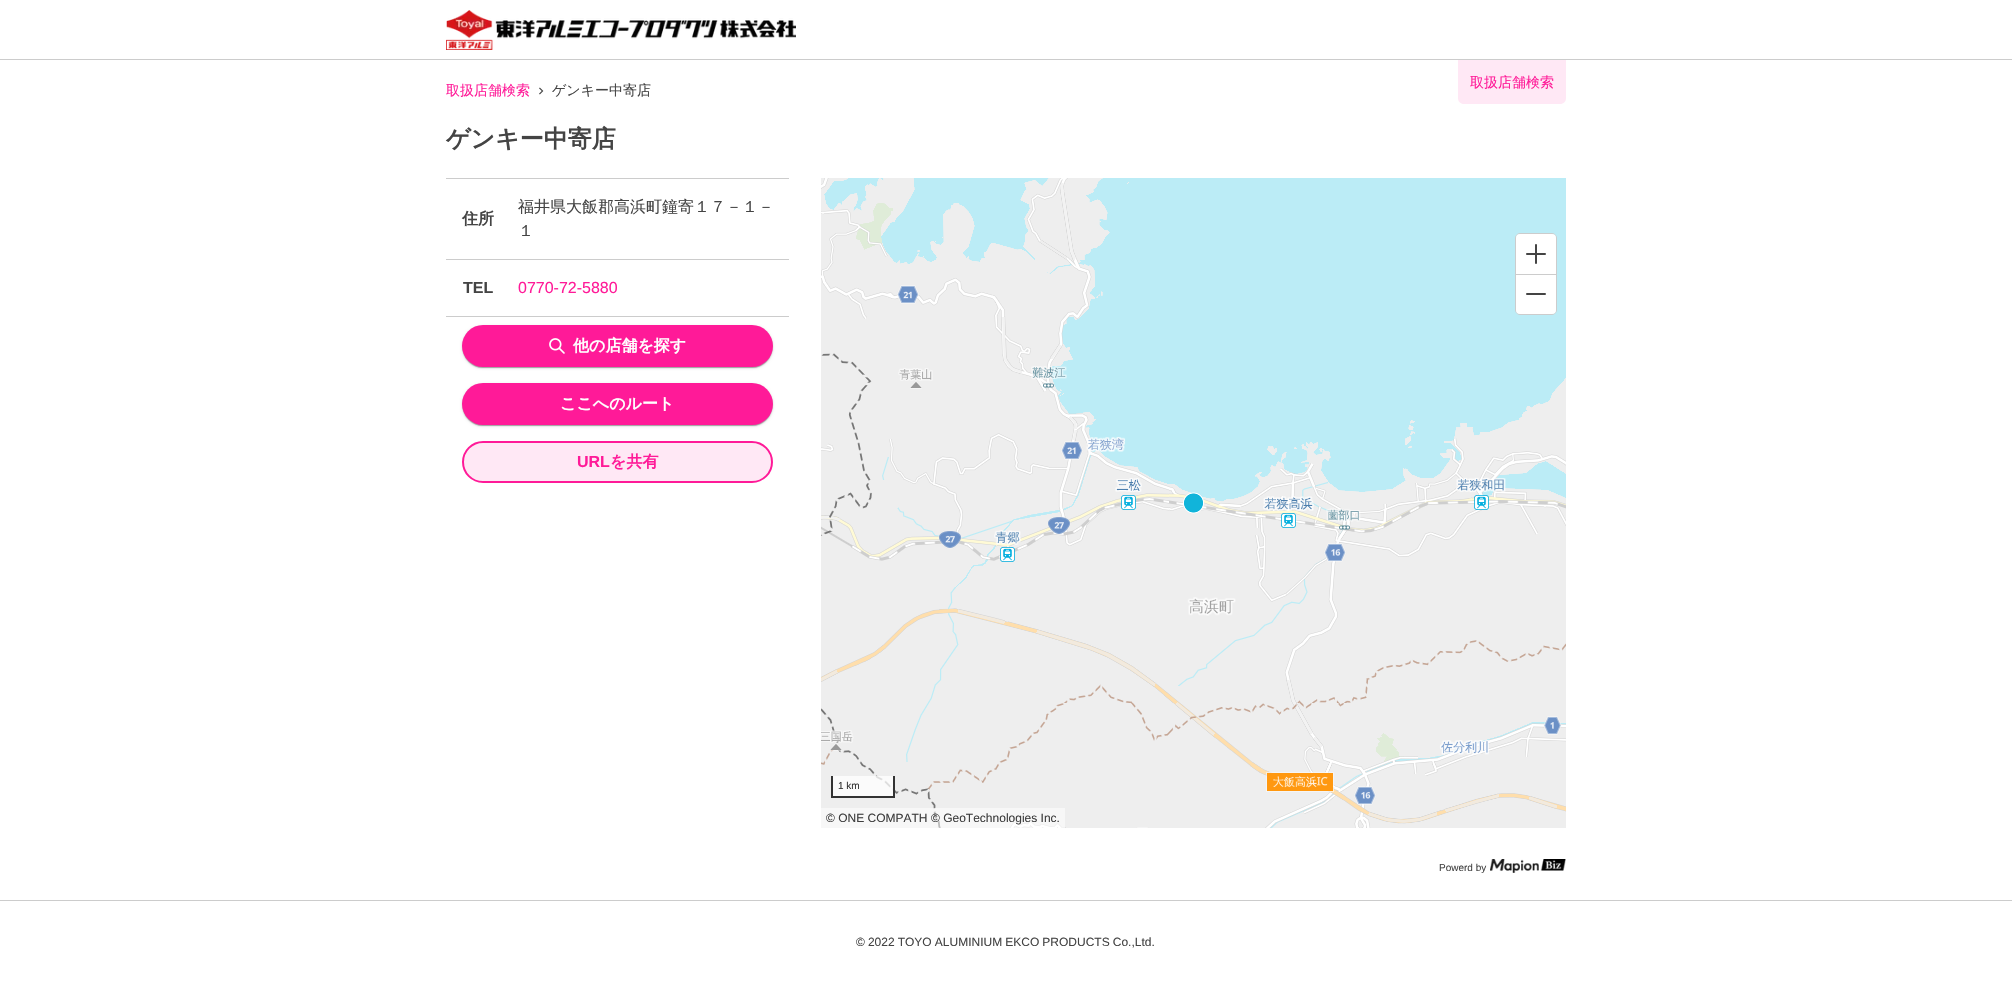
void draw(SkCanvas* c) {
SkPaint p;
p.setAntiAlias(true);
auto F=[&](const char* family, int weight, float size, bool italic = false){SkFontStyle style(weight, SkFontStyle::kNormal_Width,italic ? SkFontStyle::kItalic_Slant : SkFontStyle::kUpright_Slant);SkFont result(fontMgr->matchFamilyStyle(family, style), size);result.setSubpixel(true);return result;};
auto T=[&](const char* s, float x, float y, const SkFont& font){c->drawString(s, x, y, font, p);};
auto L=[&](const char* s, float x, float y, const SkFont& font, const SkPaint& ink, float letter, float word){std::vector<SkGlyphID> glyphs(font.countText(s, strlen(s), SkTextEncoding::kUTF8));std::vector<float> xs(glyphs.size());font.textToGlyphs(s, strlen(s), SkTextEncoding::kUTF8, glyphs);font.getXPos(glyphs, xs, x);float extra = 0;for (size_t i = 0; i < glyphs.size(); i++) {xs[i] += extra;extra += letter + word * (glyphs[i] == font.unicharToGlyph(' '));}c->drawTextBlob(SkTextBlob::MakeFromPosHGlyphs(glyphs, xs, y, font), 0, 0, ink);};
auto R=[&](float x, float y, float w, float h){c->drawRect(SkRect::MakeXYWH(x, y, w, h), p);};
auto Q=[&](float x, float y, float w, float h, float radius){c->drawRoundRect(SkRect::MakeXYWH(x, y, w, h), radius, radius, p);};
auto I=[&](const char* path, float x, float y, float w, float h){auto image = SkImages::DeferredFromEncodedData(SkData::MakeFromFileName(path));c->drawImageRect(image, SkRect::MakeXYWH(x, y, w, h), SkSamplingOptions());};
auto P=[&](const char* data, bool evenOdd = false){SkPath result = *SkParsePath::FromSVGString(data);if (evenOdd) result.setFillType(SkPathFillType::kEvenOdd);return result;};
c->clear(0xffffffff);
p.setColor(0xffcccccc);
R(0,59,2012,1);
I("1.png",446,10,350,40);
auto f1 = F("WenQuanYi Zen Hei",500,14);
p.setColor(0xffff1a98);
T("取扱店舗検索",446,95,f1);
I("2.png",539,87,5,8);
p.setColor(0xff444444);
T("ゲンキー中寄店",552,95,f1);
p.setColor(0xffffe8f5);
c->drawPath(P("M1458 60h108v38c0 3.5-2.5 6-6 6h-96c-3.5 0-6-2.5-6-6z"),p);
p.setColor(0xffff1a98);
T("取扱店舗検索",1470,87,f1);
auto f2 = F("WenQuanYi Zen Hei",700,24);
p.setColor(0xff444444);
T("ゲンキー中寄店",446,147,f2);
p.setColor(0xffcccccc);
R(446,178,343,1);
R(446,259,343,1);
auto f3 = F("WenQuanYi Zen Hei",700,16);
p.setColor(0xff444444);
T("住所",462,224,f3);
auto f4 = F("WenQuanYi Zen Hei",500,16);
T("福井県大飯郡高浜町鐘寄１７－１－",518,212,f4);
T("１",518,236,f4);
p.setColor(0xffcccccc);
R(446,316,343,1);
auto f5 = F("Liberation Sans",700,16);
p.setColor(0xff444444);
T("TEL",463,293,f5);
auto f6 = F("Liberation Sans",400,16);
p.setColor(0xffff1a98);
T("0770-72-5880",518,293,f6);
p.setColor(0x1f000000);
p.setMaskFilter(SkMaskFilter::MakeBlur(kNormal_SkBlurStyle, 1.5));
c->drawRoundRect(SkRect::MakeXYWH(462,326,311,42),21,21,p);
p.setMaskFilter(nullptr);
p.setColor(0x24000000);
p.setMaskFilter(SkMaskFilter::MakeBlur(kNormal_SkBlurStyle, .5));
c->drawRoundRect(SkRect::MakeXYWH(462,326,311,42),21,21,p);
p.setMaskFilter(nullptr);
p.setColor(0x33000000);
p.setMaskFilter(SkMaskFilter::MakeBlur(kNormal_SkBlurStyle, .5));
c->drawRoundRect(SkRect::MakeXYWH(463,328,309,40),20,20,p);
p.setMaskFilter(nullptr);
p.setColor(0xffff1a98);
Q(462,325,311,42,21);
I("3.png",549,338,16,16);
p.setColor(0xffffffff);
T("他の店舗を探す",573,351,f3);
p.setColor(0x1f000000);
p.setMaskFilter(SkMaskFilter::MakeBlur(kNormal_SkBlurStyle, 1.5));
c->drawRoundRect(SkRect::MakeXYWH(462,384,311,42),21,21,p);
p.setMaskFilter(nullptr);
p.setColor(0x24000000);
p.setMaskFilter(SkMaskFilter::MakeBlur(kNormal_SkBlurStyle, .5));
c->drawRoundRect(SkRect::MakeXYWH(462,384,311,42),21,21,p);
p.setMaskFilter(nullptr);
p.setColor(0x33000000);
p.setMaskFilter(SkMaskFilter::MakeBlur(kNormal_SkBlurStyle, .5));
c->drawRoundRect(SkRect::MakeXYWH(463,386,309,40),20,20,p);
p.setMaskFilter(nullptr);
p.setColor(0xffff1a98);
Q(462,383,311,42,21);
p.setColor(0xffffffff);
T("ここへのルート",560,409,f3);
p.setColor(0xffffe8f5);
c->drawRoundRect(SkRect::MakeXYWH(463,442,309,40),20,20,p);
p.setStroke(true);
p.setStrokeWidth(2);
p.setColor(0xffff1a98);
c->drawRoundRect(SkRect::MakeXYWH(463,442,309,40),20,20,p);
p.setStroke(false);
T("URL",577,467,f5);
T("を共有",610,467,f3);
I("4.png",821,178,745,650);
p.setStroke(true);
p.setStrokeWidth(1);
p.setColor(0xffcccccc);
c->drawRoundRect(SkRect::MakeXYWH(1515.5,233.5,41,81),4.5,4.5,p);
p.setStroke(false);
p.setColor(0xffffffff);
Q(1516,234,40,80,4);
I("5.png",1526,244,20,20);
p.setColor(0xffcccccc);
R(1516,274,40,1);
p.setColor(0xff444444);
Q(1526,293,20,2,1);
p.setColor(0xbfffffff);
R(833,776,60,20);
p.setColor(0xff333333);
R(893,776,2,22);
R(831,796,64,2);
R(831,776,2,22);
auto f7 = F("Liberation Sans",400,10);
T("1 km",838,789,f7);
p.setColor(0x80ffffff);
R(821,808,244,20);
auto f8 = F("Liberation Sans",400,12);
p.setColor(0xff3e3e3e);
T("© ONE COMPATH",826,822,f8);
T("© GeoTechnologies Inc.",931,822,f8);
p.setColor(0xff444444);
T("Powerd by",1439,871,f7);
I("6.png",1490,859,76,14);
p.setColor(0xffcccccc);
R(0,900,2012,1);
p.setColor(0xff444444);
L("© 2022 TOYO ALUMINIUM EKCO PRODUCTS Co.,Ltd.",856,946,f8,p,0,-.25);
}
